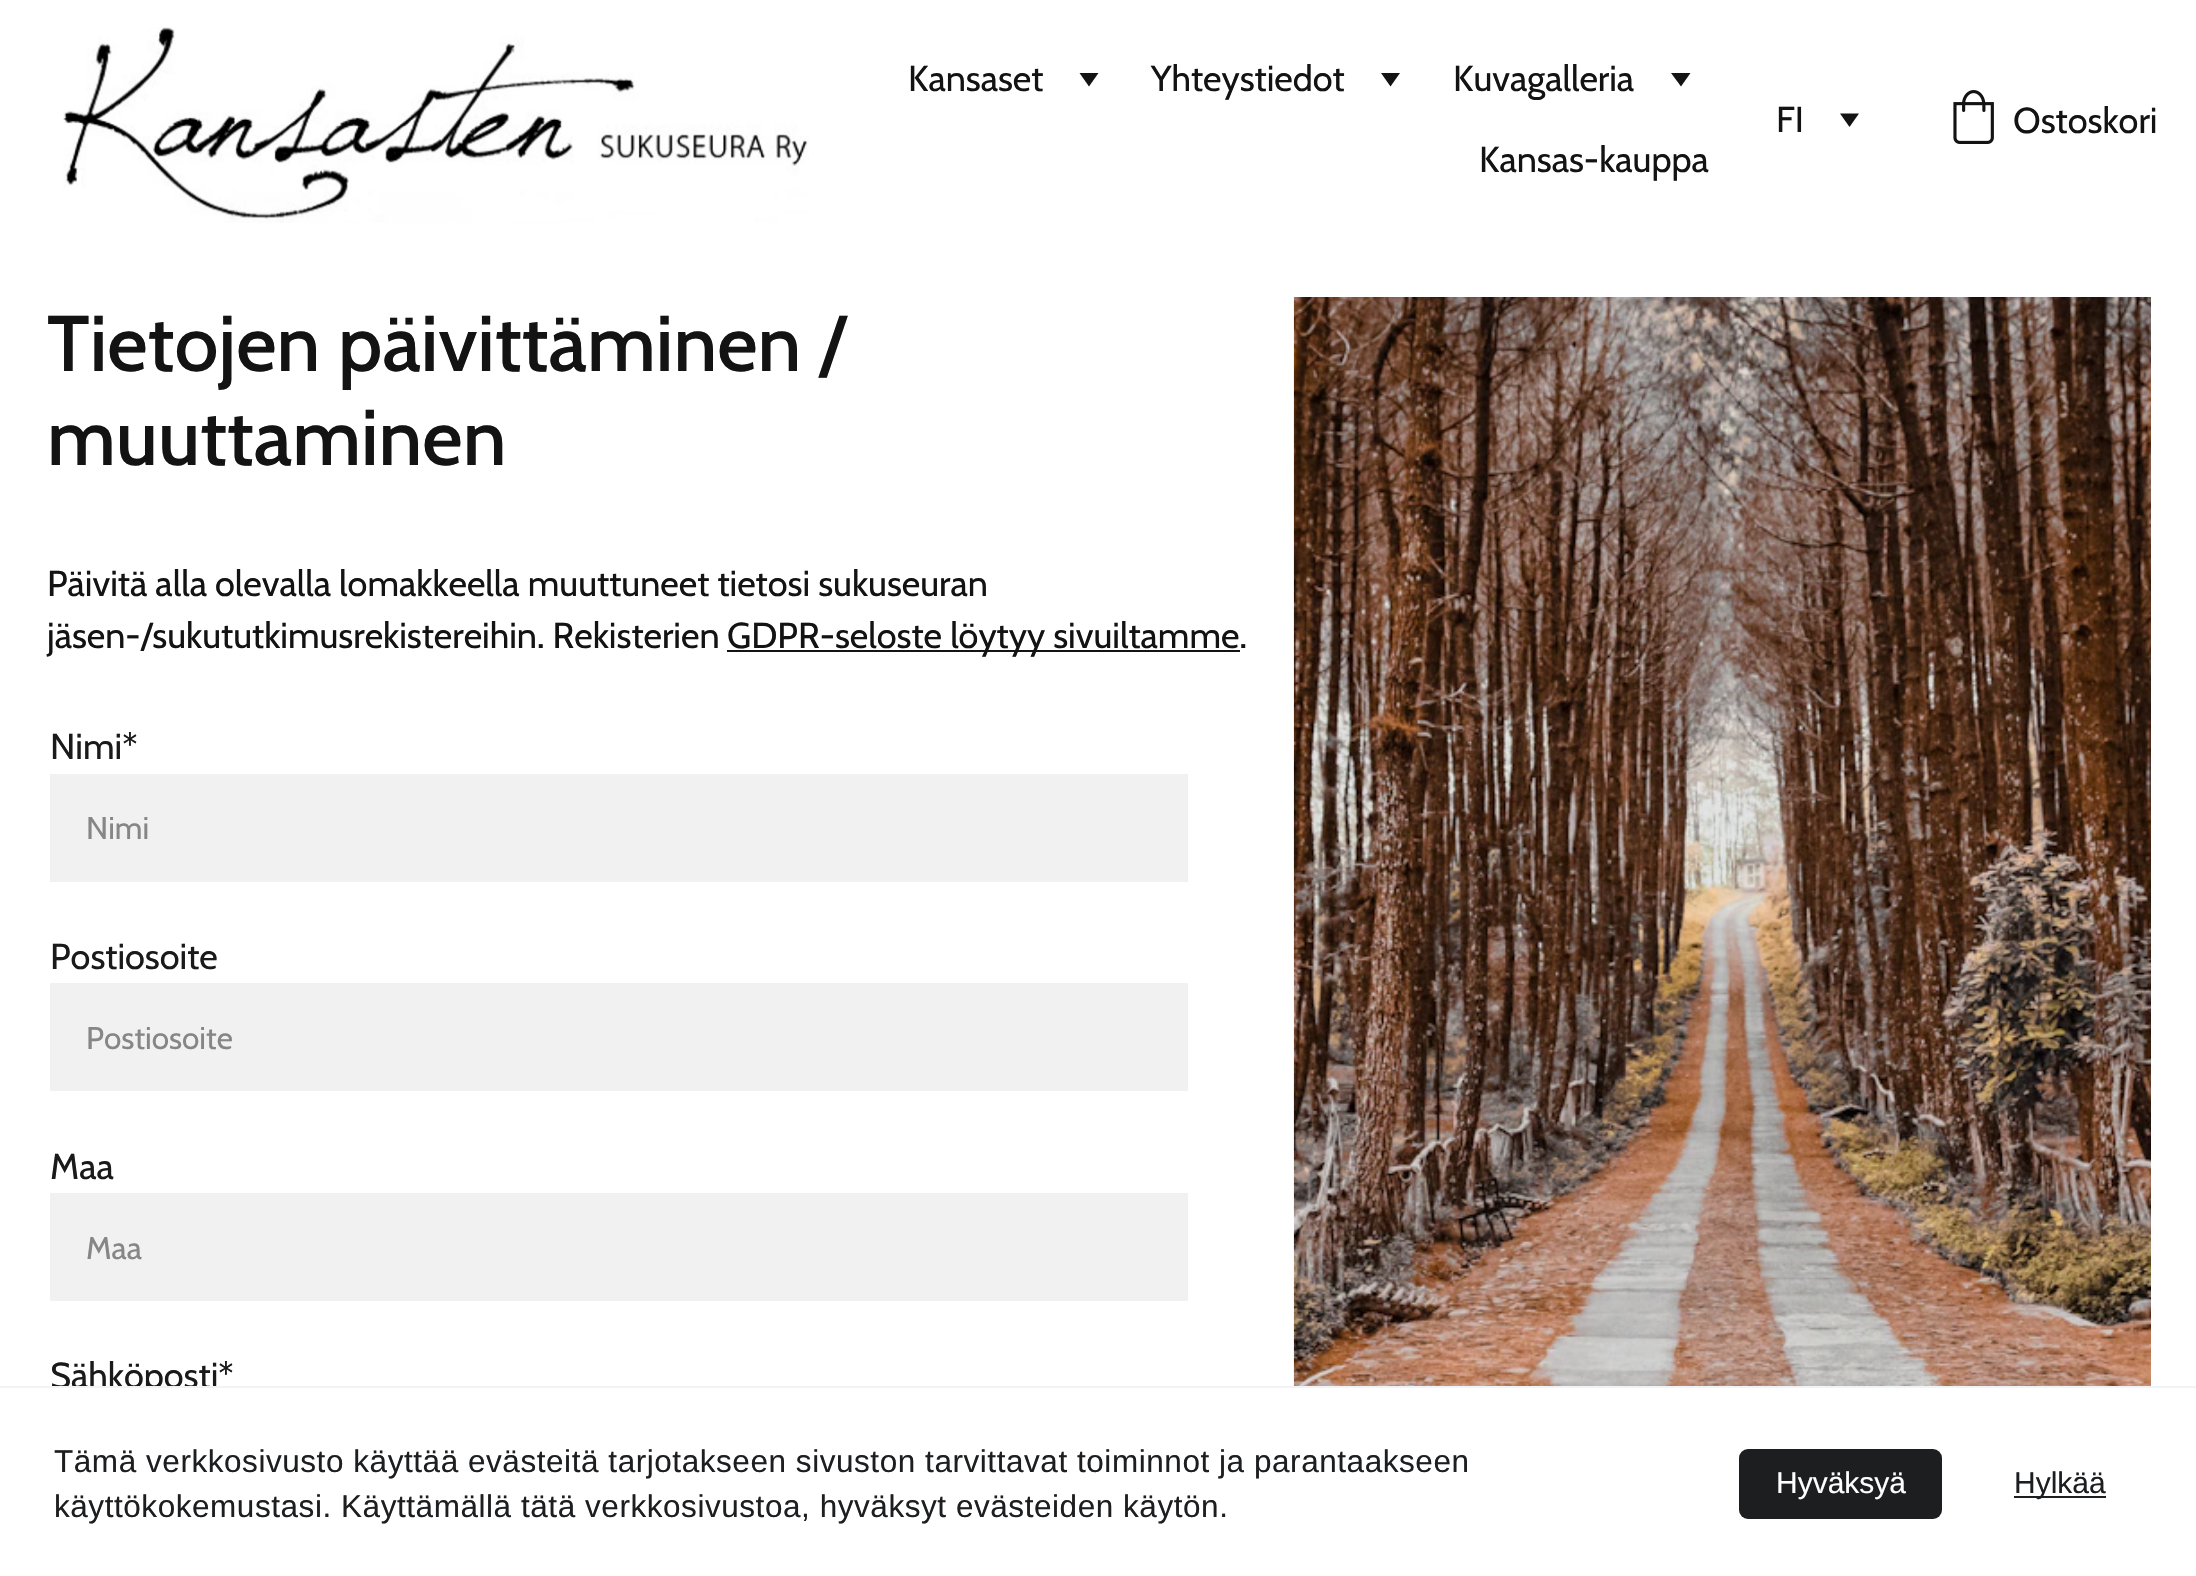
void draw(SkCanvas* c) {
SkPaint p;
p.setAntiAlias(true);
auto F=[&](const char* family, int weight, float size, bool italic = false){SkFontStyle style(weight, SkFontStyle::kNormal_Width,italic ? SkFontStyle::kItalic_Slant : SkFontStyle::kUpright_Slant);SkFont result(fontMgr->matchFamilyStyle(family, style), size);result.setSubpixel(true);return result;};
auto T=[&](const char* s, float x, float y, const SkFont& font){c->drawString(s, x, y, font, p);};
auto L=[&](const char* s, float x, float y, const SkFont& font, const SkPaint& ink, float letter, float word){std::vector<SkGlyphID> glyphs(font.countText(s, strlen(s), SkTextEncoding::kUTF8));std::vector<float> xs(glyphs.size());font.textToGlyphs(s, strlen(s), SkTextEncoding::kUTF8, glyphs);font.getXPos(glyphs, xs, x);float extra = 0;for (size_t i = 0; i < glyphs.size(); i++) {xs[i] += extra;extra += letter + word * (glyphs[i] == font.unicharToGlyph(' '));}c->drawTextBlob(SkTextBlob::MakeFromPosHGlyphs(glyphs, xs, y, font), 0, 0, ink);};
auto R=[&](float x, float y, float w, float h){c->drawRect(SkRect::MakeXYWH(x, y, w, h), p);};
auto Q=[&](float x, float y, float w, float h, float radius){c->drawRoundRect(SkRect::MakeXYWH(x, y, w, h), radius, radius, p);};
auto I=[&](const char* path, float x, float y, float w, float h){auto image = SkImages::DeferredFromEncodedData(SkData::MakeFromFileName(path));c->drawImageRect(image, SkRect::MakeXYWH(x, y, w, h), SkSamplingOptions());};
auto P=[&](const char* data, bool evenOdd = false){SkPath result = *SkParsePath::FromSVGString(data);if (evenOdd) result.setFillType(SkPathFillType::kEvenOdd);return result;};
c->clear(0xffffffff);
I("1.png",63,27,746,196);
auto f1 = F("Cabin",400,36);
p.setColor(0xff131313);
T("Kansaset",908,91,f1);
c->drawPath(P("M1089 86.5l-9.5-13.5h19z"),p);
T("Yhteystiedot",1151,91,f1);
c->drawPath(P("M1390.5 86.5l-9.5-13.5h19z"),p);
T("Kuvagalleria",1453,91,f1);
c->drawPath(P("M1681 86.5l-10-13.5h19.5z"),p);
T("Kansas-kauppa",1479,172,f1);
T("FI",1776,132,f1);
c->drawPath(P("M1849.5 127l-9.5-13.5h19z"),p);
I("2.png",1953,90,41,54);
T("Ostoskori",2013,133,f1);
auto f2 = F("Cabin",500,78.75);
T("Tietojen päivittäminen /",47,371,f2);
T("muuttaminen",47,465,f2);
T("Päivitä alla olevalla lomakkeella muuttuneet tietosi sukuseuran",47,596,f1);
T("jäsen-/sukututkimusrekistereihin. Rekisterien",47,648,f1);
R(727,650,513,2);
T("GDPR-seloste löytyy sivuiltamme.",727,648,f1);
I("3.png",1293,297,858,1089);
p.setColor(0xff1a1a1a);
T("Nimi*",50,759,f1);
p.setColor(0xfff1f1f1);
R(50,774,1138,108);
auto f3 = F("Cabin",400,31.5);
p.setColor(0xff868686);
T("Nimi",86,839,f3);
p.setColor(0xff1a1a1a);
T("Postiosoite",50,969,f1);
p.setColor(0xfff1f1f1);
R(50,983,1138,108);
p.setColor(0xff868686);
T("Postiosoite",86,1049,f3);
p.setColor(0xff1a1a1a);
T("Maa",50,1179,f1);
p.setColor(0xfff1f1f1);
R(50,1193,1138,108);
p.setColor(0xff868686);
T("Maa",86,1259,f3);
p.setColor(0xff1a1a1a);
T("Sähköposti*",50,1388,f1);
p.setColor(0xffffffff);
R(56,1388,154,9);
p.setColor(0xfff2f3f6);
R(0,1386,2196,2);
auto f4 = F("Liberation Sans",400,31.5);
p.setColor(0xff1d1e20);
L("Tämä verkkosivusto käyttää evästeitä tarjotakseen sivuston tarvittavat toiminnot ja parantaakseen",54,1472,f4,p,.55,0);
L("käyttökokemustasi. Käyttämällä tätä verkkosivustoa, hyväksyt evästeiden käytön.",54,1517,f4,p,.55,0);
Q(1739,1449,203,70,9);
auto f5 = F("Liberation Sans",400,30);
p.setColor(0xffffffff);
T("Hyväksyä",1776,1493,f5);
p.setColor(0xff1d1e20);
R(2014,1496,92,2);
T("Hylkää",2014,1493,f5);
}
